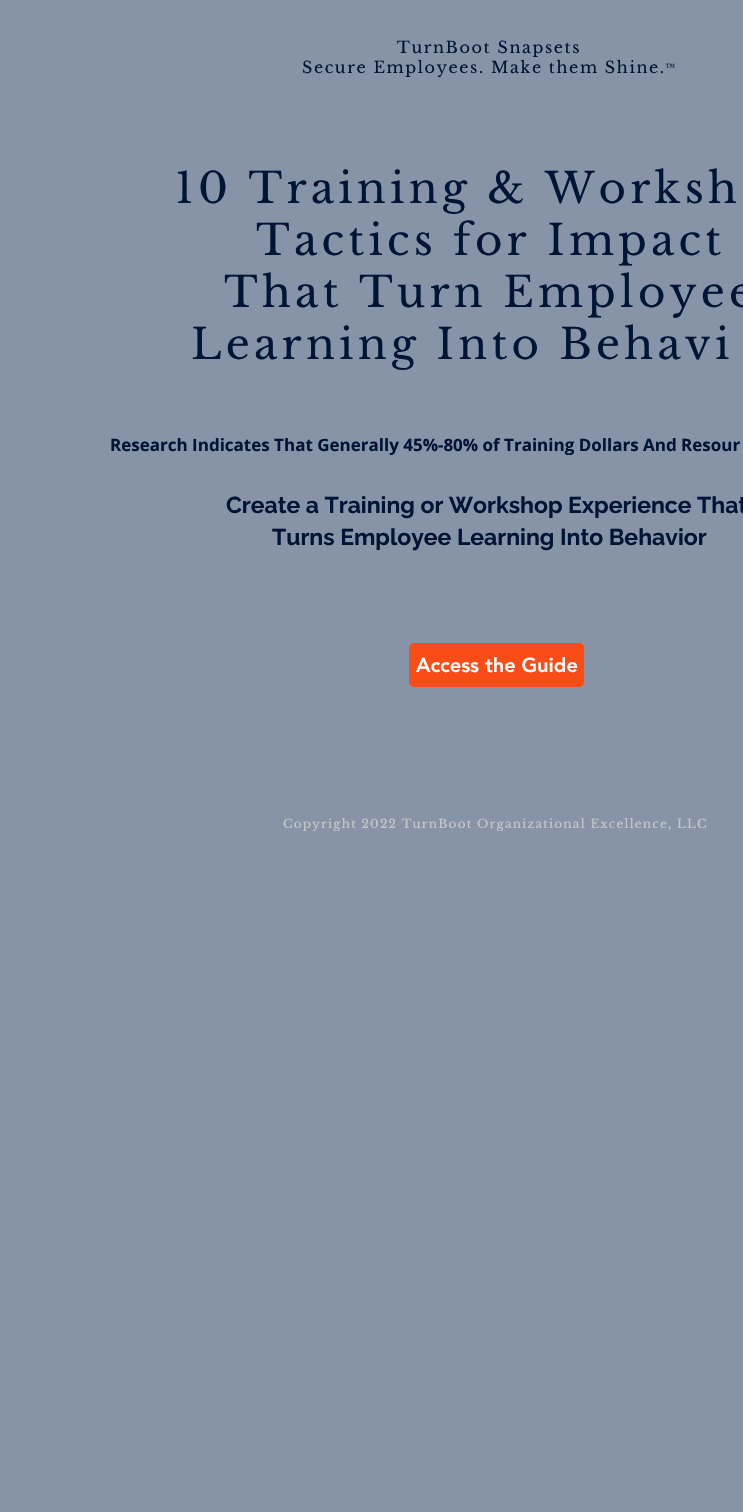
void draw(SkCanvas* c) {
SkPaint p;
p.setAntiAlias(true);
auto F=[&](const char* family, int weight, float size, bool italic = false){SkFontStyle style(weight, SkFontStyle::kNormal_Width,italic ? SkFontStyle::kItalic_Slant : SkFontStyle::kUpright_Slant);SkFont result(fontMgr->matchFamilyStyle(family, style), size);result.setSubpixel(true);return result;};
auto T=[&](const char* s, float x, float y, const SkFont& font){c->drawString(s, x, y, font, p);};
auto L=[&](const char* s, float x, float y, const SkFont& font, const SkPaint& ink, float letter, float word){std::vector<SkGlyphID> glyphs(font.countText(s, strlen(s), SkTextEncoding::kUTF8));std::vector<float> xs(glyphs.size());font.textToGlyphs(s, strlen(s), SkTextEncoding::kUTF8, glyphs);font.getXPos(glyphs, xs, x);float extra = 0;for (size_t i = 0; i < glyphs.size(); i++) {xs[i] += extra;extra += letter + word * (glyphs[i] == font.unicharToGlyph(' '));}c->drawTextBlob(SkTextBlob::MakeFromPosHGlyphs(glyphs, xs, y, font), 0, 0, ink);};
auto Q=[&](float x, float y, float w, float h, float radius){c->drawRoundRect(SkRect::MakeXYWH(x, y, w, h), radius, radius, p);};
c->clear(0xff8794a7);
auto f1 = F("Libre Baskerville",400,16);
p.setColor(0xff001435);
L("TurnBoot Snapsets",397,53,f1,p,1.6,0);
L("Secure Employees. Make them Shine.",302,73,f1,p,1.6,0);
auto f2 = F("Libre Baskerville",400,12);
L("™",665,73,f2,p,1.2,0);
auto f3 = F("Libre Baskerville",400,42);
L("10 Training & Worksh",175,203,f3,p,4.25,0);
L("Tactics for Impact",256,255,f3,p,4.25,0);
L("That Turn Employee",224,307,f3,p,4.25,0);
L("Learning Into Behavi",191,359,f3,p,4.25,0);
auto f4 = F("Open Sans",700,17);
T("Research Indicates That Generally 45%-80% of Training Dollars And Resour",110,451,f4);
auto f5 = F("Raleway",700,23);
T("Create a Training or Workshop Experience That",226,513,f5);
T("Turns Employee Learning Into Behavior",272,545,f5);
p.setColor(0xfffa4c16);
Q(409,643,175,44,5);
auto f6 = F("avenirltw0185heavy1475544",900,20);
p.setColor(0xffffffff);
T("Access the Guide",416,672,f6);
p.setColor(0xffc8c8c8);
L("Copyright 2022 TurnBoot Organizational Excellence, LLC",283,828,f2,p,1.2,0);
}
